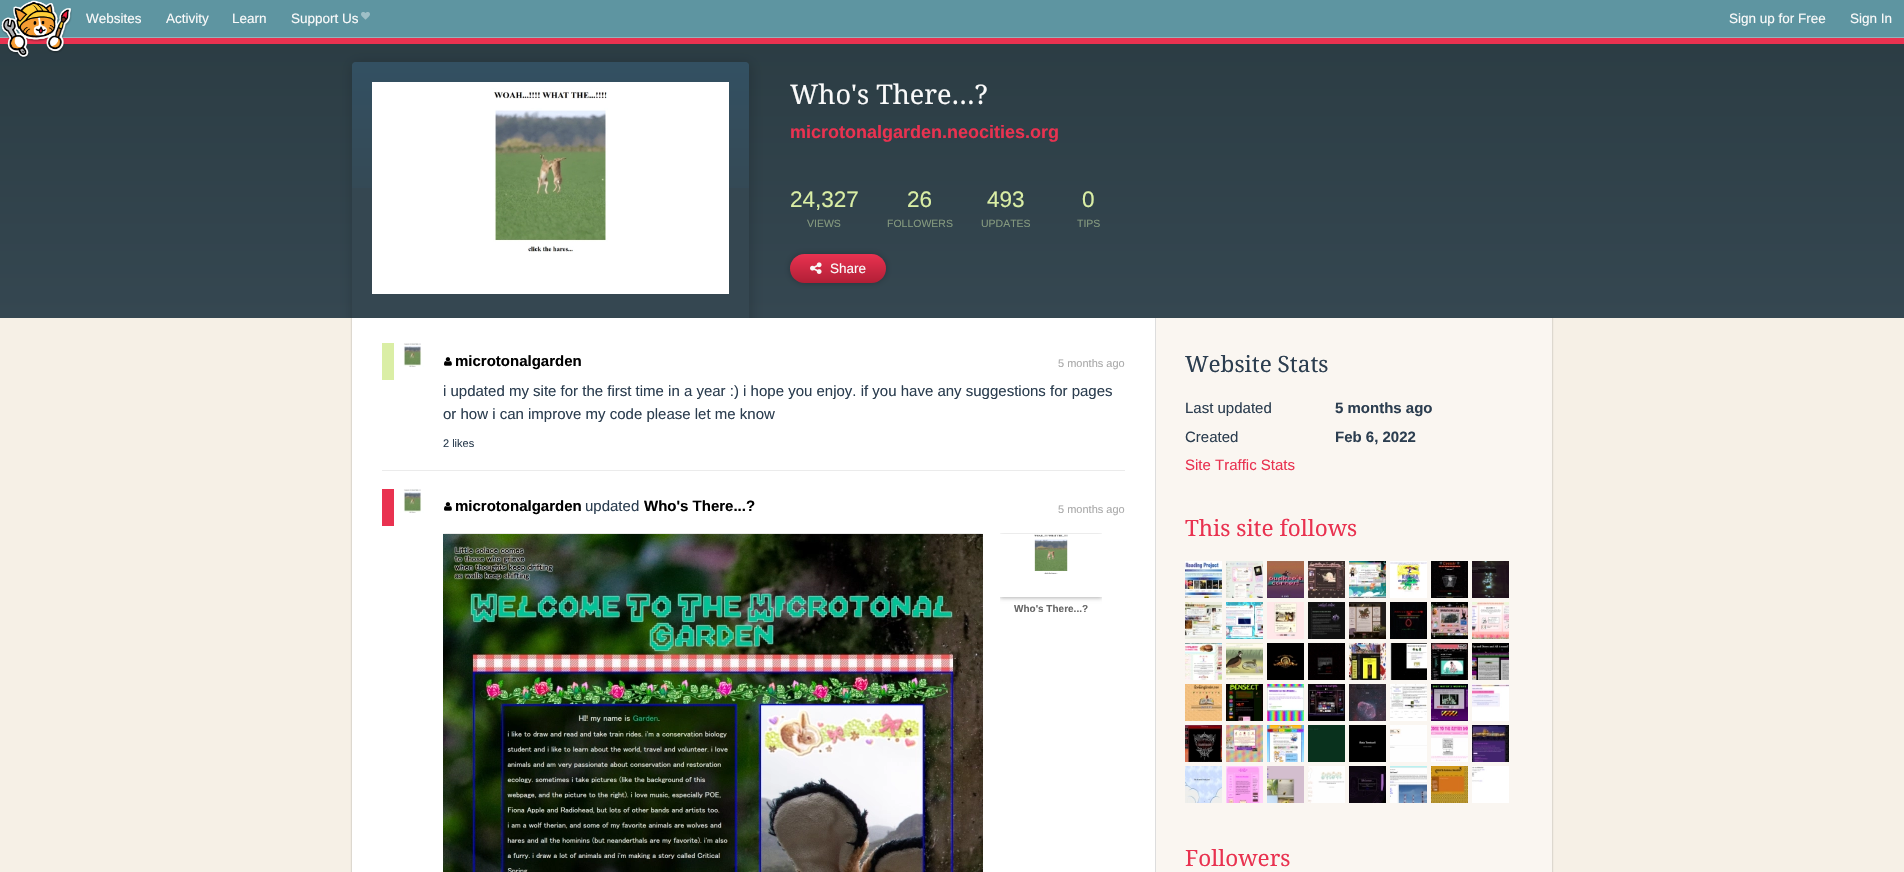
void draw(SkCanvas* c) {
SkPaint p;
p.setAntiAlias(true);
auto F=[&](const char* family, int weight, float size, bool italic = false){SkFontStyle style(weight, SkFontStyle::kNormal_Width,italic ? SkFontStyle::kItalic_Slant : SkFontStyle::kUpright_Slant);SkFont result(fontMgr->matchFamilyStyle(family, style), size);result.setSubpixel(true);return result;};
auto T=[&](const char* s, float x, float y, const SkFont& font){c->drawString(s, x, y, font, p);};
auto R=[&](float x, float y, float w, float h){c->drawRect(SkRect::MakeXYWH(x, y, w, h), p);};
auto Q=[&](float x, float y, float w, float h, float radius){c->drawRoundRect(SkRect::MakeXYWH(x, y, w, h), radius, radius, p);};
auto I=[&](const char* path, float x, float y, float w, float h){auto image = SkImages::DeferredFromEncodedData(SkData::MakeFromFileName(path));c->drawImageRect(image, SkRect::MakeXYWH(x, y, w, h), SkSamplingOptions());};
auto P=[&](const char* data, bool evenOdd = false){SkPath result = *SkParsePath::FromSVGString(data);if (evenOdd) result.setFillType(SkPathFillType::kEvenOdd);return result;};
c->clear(0xfff6f0e6);
{
const SkColor colors[] = {0xff2b3c43,0xff354751};
const float stops[] = {0,1};
const SkPoint ends[] = {{952,22}, {952,318}};
p.setShader(SkGradientShader::MakeLinear(ends, colors, stops, 2, SkTileMode::kClamp));
p.setAlpha(255);
}
R(0,44,1904,274);
c->save();
c->clipRect(SkRect::MakeXYWH(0,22,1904,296));
p.setShader(nullptr);
p.setColor(0x26000000);
p.setMaskFilter(SkMaskFilter::MakeBlur(kNormal_SkBlurStyle, 6));
c->drawRoundRect(SkRect::MakeXYWH(351,62,401,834),6,6,p);
p.setMaskFilter(nullptr);
c->restore();
p.setColor(0xffe93250);
R(0,38,1904,6);
p.setColor(0xff5e95a1);
R(0,0,1904,37);
p.setColor(0xff92b4bd);
R(0,37,1904,1);
I("1.png",1,0,71,59);
auto f1 = F("Liberation Sans",400,13.5);
p.setColor(0xfffafafa);
T("Websites",86,23,f1);
T("Activity",166,23,f1);
T("Learn",232,23,f1);
T("Support Us",291,23,f1);
I("2.png",361,12,9,8);
T("Sign up for Free",1729,23,f1);
T("Sign In",1850,23,f1);
p.setColor(0xff354751);
c->drawPath(P("M356 62h389c2 0 4 2 4 4v252h-397v-252c0-2 2-4 4-4z"),p);
I("3.png",352,62,397,126);
I("4.png",372,82,357,212);
auto f2 = F("Droid Serif",400,27);
p.setColor(0xfffafafa);
T("Who's There...?",790,104,f2);
auto f3 = F("Liberation Sans",700,18);
p.setColor(0xffe93250);
T("microtonalgarden.neocities.org",790,138,f3);
auto f4 = F("Liberation Sans",400,22.5);
p.setColor(0xffdaeea5);
T("24,327",790,207,f4);
auto f5 = F("Liberation Sans",400,10.5);
p.setColor(0xff84997e);
T("VIEWS",807,227,f5);
p.setColor(0xffdaeea5);
T("26",907,207,f4);
p.setColor(0xff84997e);
T("FOLLOWERS",887,227,f5);
p.setColor(0xffdaeea5);
T("493",987,207,f4);
p.setColor(0xff84997e);
T("UPDATES",981,227,f5);
p.setColor(0xffdaeea5);
T("0",1082,207,f4);
p.setColor(0xff84997e);
T("TIPS",1077,227,f5);
p.setColor(0x40000000);
p.setMaskFilter(SkMaskFilter::MakeBlur(kNormal_SkBlurStyle, 3));
c->drawRoundRect(SkRect::MakeXYWH(790,254,96,29),14.5,14.5,p);
p.setMaskFilter(nullptr);
{
const SkColor colors[] = {0xffe93250,0xffb11f36};
const float stops[] = {0,1};
const SkPoint ends[] = {{838,254}, {838,283}};
p.setShader(SkGradientShader::MakeLinear(ends, colors, stops, 2, SkTileMode::kClamp));
p.setAlpha(255);
}
Q(790,254,96,29,14.5);
I("5.png",810,262,12,12);
p.setShader(nullptr);
p.setColor(0xfffafafa);
T("Share",830,273,f1);
p.setColor(0x1a000000);
p.setMaskFilter(SkMaskFilter::MakeBlur(kNormal_SkBlurStyle, .5));
c->drawRect(SkRect::MakeXYWH(351,318,1202,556),p);
p.setMaskFilter(nullptr);
p.setColor(0xfffaf6f1);
R(1156,318,396,554);
p.setColor(0xffdddddd);
R(1155,318,1,554);
p.setColor(0xffffffff);
R(352,318,803,554);
p.setColor(0xffdaeea5);
R(382,343,12,37);
I("6.png",394,343,37,37);
I("7.png",444,357,8,9);
auto f6 = F("Liberation Sans",700,15);
p.setColor(0xff000000);
T("microtonalgarden",455,366,f6);
auto f7 = F("Liberation Sans",400,11);
p.setColor(0xffaaaaaa);
T("5 months ago",1058,367,f7);
auto f8 = F("Liberation Sans",400,15);
p.setColor(0xff2c3e50);
T("i updated my site for the first time in a year :) i hope you enjoy. if you have any suggestions for pages",443,396,f8);
T("or how i can improve my code please let me know",443,419,f8);
T("2 likes",443,447,f7);
p.setColor(0xffebebeb);
R(382,470,743,1);
p.setColor(0xffe93250);
R(382,489,12,37);
I("6.png",394,489,37,37);
I("7.png",444,502,8,9);
p.setColor(0xff000000);
T("microtonalgarden",455,511,f6);
p.setColor(0xff2c3e50);
T("updated",585,511,f8);
p.setColor(0xff000000);
T("Who's There...?",644,511,f6);
p.setColor(0xffaaaaaa);
T("5 months ago",1058,513,f7);
c->save();
c->clipRect(SkRect::MakeXYWH(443,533,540,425));
p.setColor(0x4d000000);
p.setMaskFilter(SkMaskFilter::MakeBlur(kNormal_SkBlurStyle, 2));
c->drawRect(SkRect::MakeXYWH(443,535,540,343),p);
p.setMaskFilter(nullptr);
c->restore();
I("8.png",443,534,540,338);
c->save();
c->clipRect(SkRect::MakeXYWH(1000,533,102,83));
c->clipPath(P("M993 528h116v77h-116zm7 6h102v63h-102z",true),true);
p.setMaskFilter(SkMaskFilter::MakeBlur(kNormal_SkBlurStyle, 2));
c->drawRect(SkRect::MakeXYWH(1000,535,102,63),p);
p.setMaskFilter(nullptr);
c->restore();
I("9.png",1034,534,34,40);
auto f9 = F("Liberation Sans",700,10);
p.setColor(0xff666666);
T("Who's There...?",1014,612,f9);
auto f10 = F("Droid Serif",400,22.5);
p.setColor(0xff2c3e50);
T("Website Stats",1185,372,f10);
T("Last updated",1185,413,f8);
T("5 months ago",1335,413,f6);
T("Created",1185,442,f8);
T("Feb 6, 2022",1335,442,f6);
p.setColor(0xffe93250);
T("Site Traffic Stats",1185,470,f8);
T("This site follows",1185,536,f10);
I("10.png",1185,561,37,37);
I("11.png",1226,561,37,37);
I("12.png",1267,561,37,37);
I("13.png",1308,561,37,37);
I("14.png",1349,561,37,37);
I("15.png",1390,561,37,37);
I("16.png",1431,561,37,37);
I("17.png",1472,561,37,37);
I("18.png",1185,602,37,37);
I("19.png",1226,602,37,37);
I("20.png",1267,602,37,37);
I("21.png",1308,602,37,37);
I("22.png",1349,602,37,37);
I("23.png",1390,602,37,37);
I("24.png",1431,602,37,37);
I("25.png",1472,602,37,37);
I("26.png",1185,643,37,37);
I("27.png",1226,643,37,37);
I("28.png",1267,643,37,37);
I("29.png",1308,643,37,37);
I("30.png",1349,643,37,37);
I("31.png",1390,643,37,37);
I("32.png",1431,643,37,37);
I("33.png",1472,643,37,37);
I("34.png",1185,684,37,37);
I("35.png",1226,684,37,37);
I("36.png",1267,684,37,37);
I("37.png",1308,684,37,37);
I("38.png",1349,684,37,37);
I("39.png",1390,684,37,37);
I("40.png",1431,684,37,37);
I("41.png",1472,684,37,37);
I("42.png",1185,725,37,37);
I("43.png",1226,725,37,37);
I("44.png",1267,725,37,37);
I("45.png",1308,725,37,37);
I("46.png",1349,725,37,37);
I("47.png",1390,725,37,37);
I("48.png",1431,725,37,37);
I("49.png",1472,725,37,37);
I("50.png",1185,766,37,37);
I("51.png",1226,766,37,37);
I("52.png",1267,766,37,37);
I("53.png",1308,766,37,37);
I("54.png",1349,766,37,37);
I("55.png",1390,766,37,37);
I("56.png",1431,766,37,37);
I("57.png",1472,766,37,37);
T("Followers",1185,866,f10);
}
